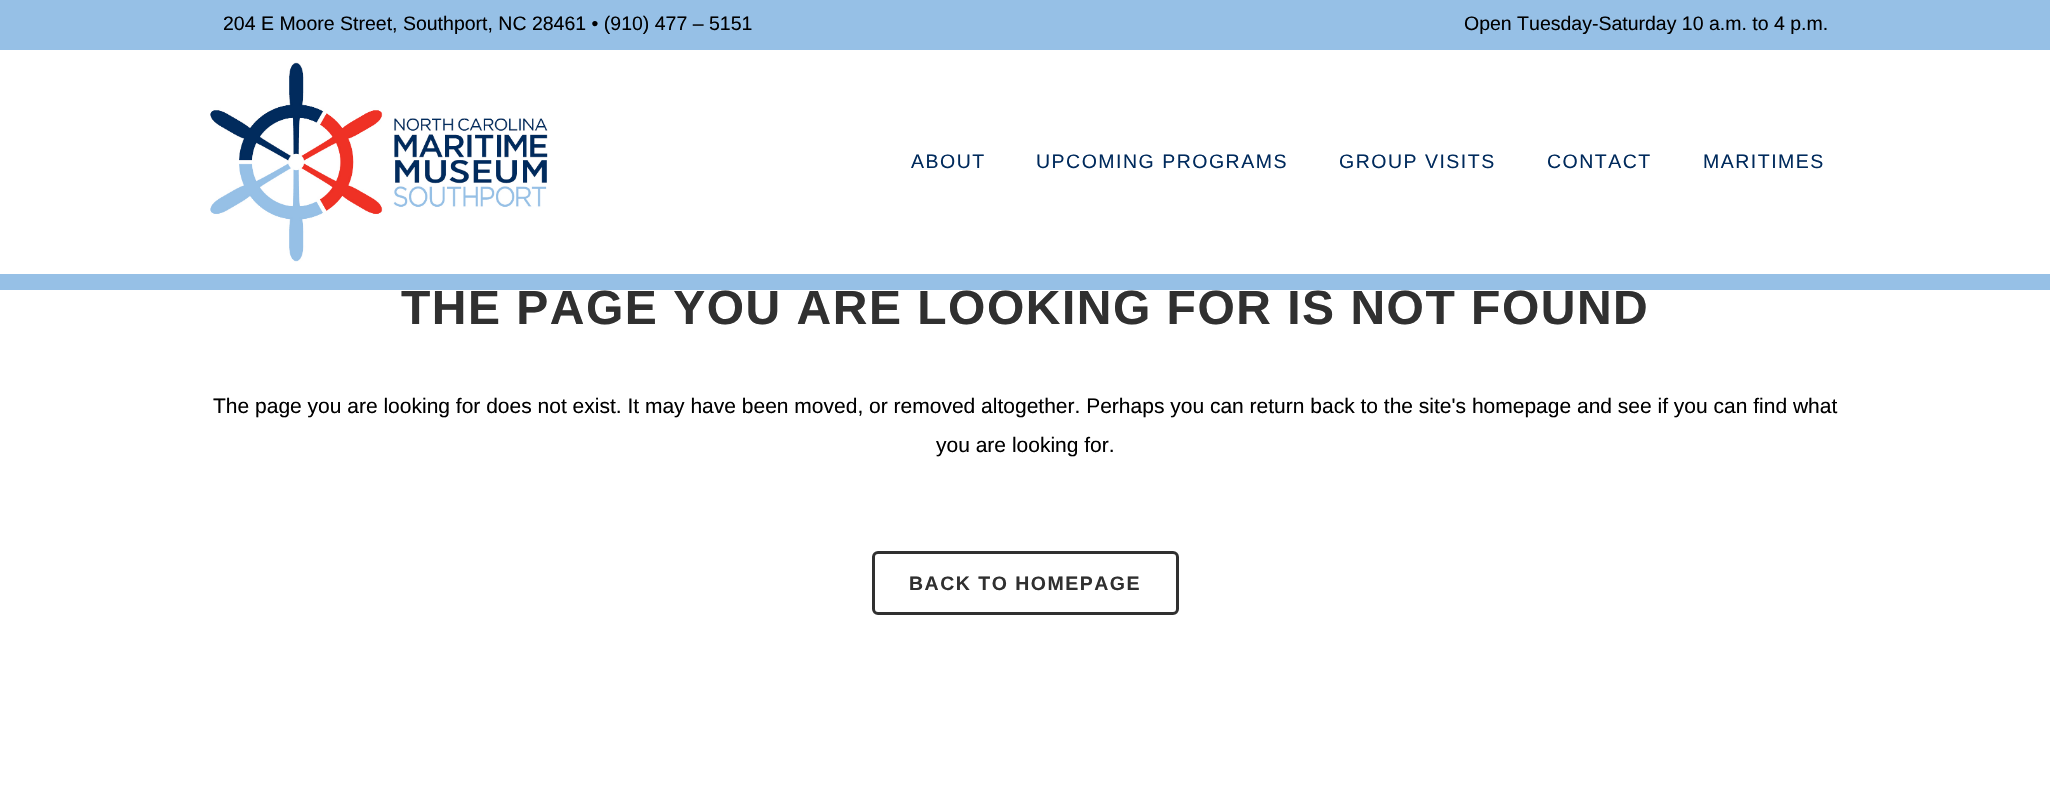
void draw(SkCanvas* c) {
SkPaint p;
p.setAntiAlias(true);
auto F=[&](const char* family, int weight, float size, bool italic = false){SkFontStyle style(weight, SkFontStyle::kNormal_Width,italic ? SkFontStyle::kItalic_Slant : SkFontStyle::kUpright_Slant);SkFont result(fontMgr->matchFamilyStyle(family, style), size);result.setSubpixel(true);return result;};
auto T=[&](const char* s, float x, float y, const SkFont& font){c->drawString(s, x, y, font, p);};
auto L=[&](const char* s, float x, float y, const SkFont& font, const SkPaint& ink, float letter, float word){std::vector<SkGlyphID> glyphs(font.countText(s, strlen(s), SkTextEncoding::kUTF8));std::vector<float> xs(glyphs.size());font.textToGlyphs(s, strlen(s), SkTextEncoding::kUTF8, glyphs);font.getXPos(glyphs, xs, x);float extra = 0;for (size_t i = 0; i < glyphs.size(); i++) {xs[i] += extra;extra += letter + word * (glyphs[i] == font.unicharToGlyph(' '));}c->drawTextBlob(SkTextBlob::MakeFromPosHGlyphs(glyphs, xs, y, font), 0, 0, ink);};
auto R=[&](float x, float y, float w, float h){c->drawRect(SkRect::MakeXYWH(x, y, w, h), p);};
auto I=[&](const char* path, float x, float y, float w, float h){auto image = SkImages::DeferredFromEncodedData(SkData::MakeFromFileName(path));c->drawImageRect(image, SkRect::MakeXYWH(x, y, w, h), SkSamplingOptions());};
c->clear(0xffffffff);
p.setColor(0xff96c0e6);
R(0,0,2050,50);
auto f1 = F("Liberation Sans",400,19.5);
p.setColor(0xff000000);
T("204 E Moore Street, Southport, NC 28461 • (910) 477 – 5151",223,30,f1);
T("Open Tuesday-Saturday 10 a.m. to 4 p.m.",1464,30,f1);
p.setColor(0xff96c0e6);
R(0,274,2050,16);
I("1.png",210,62,338,200);
p.setColor(0xff002a5c);
L("ABOUT",911,168,f1,p,1.5,0);
L("UPCOMING PROGRAMS",1036,168,f1,p,1.5,0);
L("GROUP VISITS",1339,168,f1,p,1.5,0);
L("CONTACT",1547,168,f1,p,1.5,0);
L("MARITIMES",1703,168,f1,p,1.5,0);
auto f2 = F("Liberation Sans",700,48);
p.setColor(0xff303030);
L("THE PAGE YOU ARE LOOKING FOR IS NOT FOUND",401,324,f2,p,1.5,0);
auto f3 = F("Liberation Sans",400,21);
p.setColor(0xff000000);
T("The page you are looking for does not exist. It may have been moved, or removed altogether. Perhaps you can return back to the site's homepage and see if you can find what",213,413,f3);
T("you are looking for.",936,452,f3);
p.setStroke(true);
p.setStrokeWidth(3);
p.setColor(0xff303030);
c->drawRoundRect(SkRect::MakeXYWH(873.5,552.5,304,61),4.5,4.5,p);
auto f4 = F("Liberation Sans",700,19.5);
p.setStroke(false);
L("BACK TO HOMEPAGE",909,590,f4,p,1.5,0);
}
